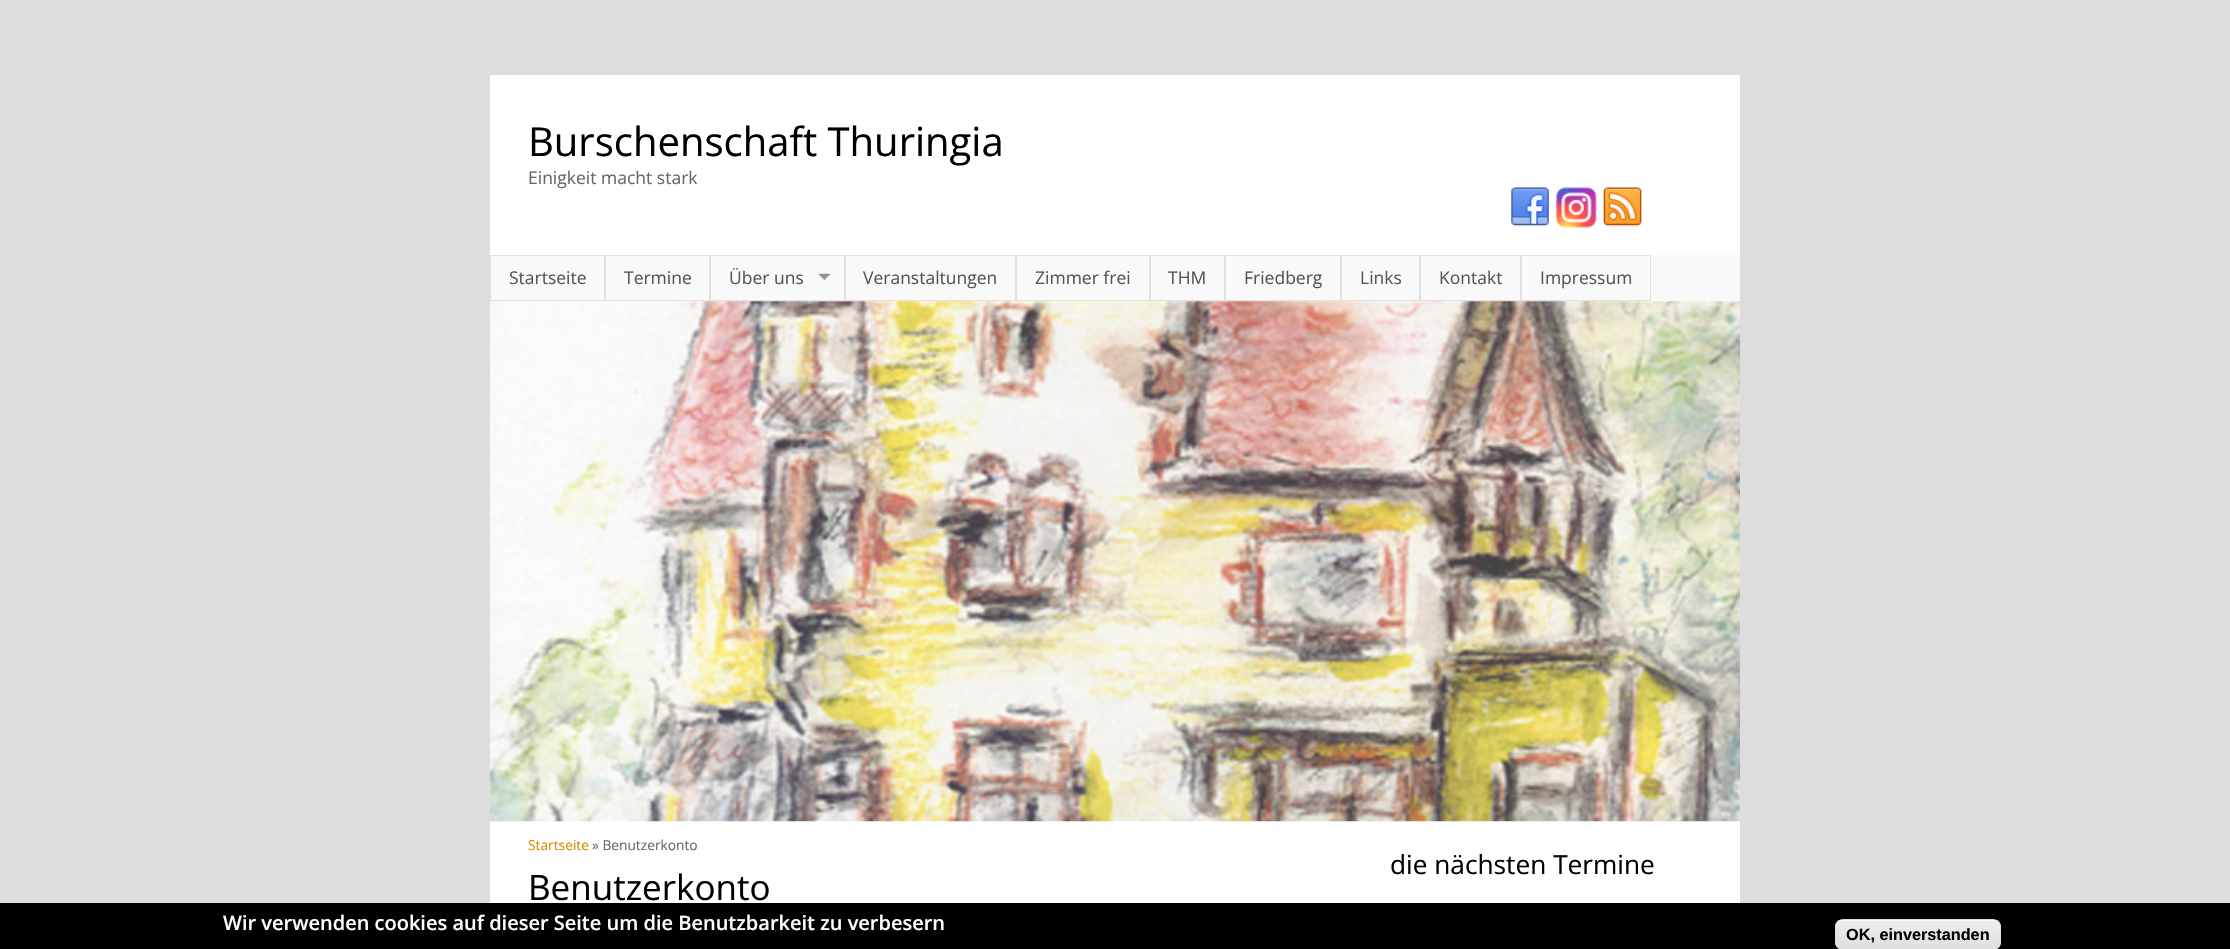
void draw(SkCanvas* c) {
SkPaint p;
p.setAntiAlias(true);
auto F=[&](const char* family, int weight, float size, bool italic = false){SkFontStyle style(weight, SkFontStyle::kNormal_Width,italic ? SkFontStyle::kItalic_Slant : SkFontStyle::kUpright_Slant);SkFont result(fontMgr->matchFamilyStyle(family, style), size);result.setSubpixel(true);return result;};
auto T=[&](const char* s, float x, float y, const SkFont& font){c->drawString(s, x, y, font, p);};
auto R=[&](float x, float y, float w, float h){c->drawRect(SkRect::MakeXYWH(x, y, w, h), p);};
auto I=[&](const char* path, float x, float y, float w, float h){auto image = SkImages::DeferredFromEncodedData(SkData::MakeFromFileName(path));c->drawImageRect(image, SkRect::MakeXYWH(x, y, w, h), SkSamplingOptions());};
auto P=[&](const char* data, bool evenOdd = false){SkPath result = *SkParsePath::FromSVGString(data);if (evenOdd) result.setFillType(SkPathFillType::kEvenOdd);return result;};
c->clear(0xffdddddd);
p.setColor(0xffffffff);
R(490,75,1250,828);
auto f1 = F("Open Sans",400,40);
p.setColor(0xff000000);
T("Burschenschaft Thuringia",528,156,f1);
auto f2 = F("Open Sans",400,17.5);
p.setColor(0xff676767);
T("Einigkeit macht stark",528,184,f2);
I("1.png",1511,187,38,40);
I("2.png",1556,187,41,41);
I("3.png",1603,187,39,40);
p.setColor(0xfff9f9f9);
R(491,255,1249,46);
p.setStroke(true);
p.setStrokeWidth(1);
p.setColor(0xffe1e1e1);
c->drawRect(SkRect::MakeXYWH(490.5,255.5,114,45),p);
p.setStroke(false);
p.setColor(0xff555555);
T("Startseite",509,284,f2);
p.setStroke(true);
p.setColor(0xffe1e1e1);
c->drawRect(SkRect::MakeXYWH(605.5,255.5,104,45),p);
p.setStroke(false);
p.setColor(0xff555555);
T("Termine",624,284,f2);
p.setStroke(true);
p.setColor(0xffe1e1e1);
c->drawRect(SkRect::MakeXYWH(710.5,255.5,134,45),p);
p.setStroke(false);
p.setColor(0xff555555);
T("Über uns",729,284,f2);
I("4.png",818,273,12,8);
p.setStroke(true);
p.setColor(0xffe1e1e1);
c->drawRect(SkRect::MakeXYWH(845.5,255.5,170,45),p);
p.setStroke(false);
p.setColor(0xff555555);
T("Veranstaltungen",863,284,f2);
p.setStroke(true);
p.setColor(0xffe1e1e1);
c->drawRect(SkRect::MakeXYWH(1016.5,255.5,133,45),p);
p.setStroke(false);
p.setColor(0xff555555);
T("Zimmer frei",1035,284,f2);
p.setStroke(true);
p.setColor(0xffe1e1e1);
c->drawRect(SkRect::MakeXYWH(1150.5,255.5,74,45),p);
p.setStroke(false);
p.setColor(0xff555555);
T("THM",1168,284,f2);
p.setStroke(true);
p.setColor(0xffe1e1e1);
c->drawRect(SkRect::MakeXYWH(1225.5,255.5,115,45),p);
p.setStroke(false);
p.setColor(0xff555555);
T("Friedberg",1244,284,f2);
p.setStroke(true);
p.setColor(0xffe1e1e1);
c->drawRect(SkRect::MakeXYWH(1341.5,255.5,78,45),p);
p.setStroke(false);
p.setColor(0xff555555);
T("Links",1360,284,f2);
p.setStroke(true);
p.setColor(0xffe1e1e1);
c->drawRect(SkRect::MakeXYWH(1420.5,255.5,100,45),p);
p.setStroke(false);
p.setColor(0xff555555);
T("Kontakt",1439,284,f2);
p.setStroke(true);
p.setColor(0xffe1e1e1);
c->drawRect(SkRect::MakeXYWH(1521.5,255.5,129,45),p);
p.setStroke(false);
p.setColor(0xff555555);
T("Impressum",1540,284,f2);
I("5.png",490,301,1250,521);
auto f3 = F("Open Sans",400,13.75);
p.setColor(0xffd88900);
T("Startseite",528,850,f3);
p.setColor(0xff676767);
T("» Benutzerkonto",592,850,f3);
auto f4 = F("Open Sans",400,35);
p.setColor(0xff000000);
T("Benutzerkonto",528,900,f4);
auto f5 = F("Open Sans",400,26.25);
T("die nächsten Termine",1390,874,f5);
R(0,903,2230,46);
auto f6 = F("Open Sans",600,20);
p.setColor(0xffffffff);
T("Wir verwenden cookies auf dieser Seite um die Benutzbarkeit zu verbesern",223,930,f6);
c->save();
c->clipPath(P("M1843 919h150c4.5 0 8 3.5 8 8v15c0 4.5-3.5 8-8 8h-150c-4.5 0-8-3.5-8-8v-15c0-4.5 3.5-8 8-8z"),true);
{
const SkColor colors[] = {0xffededed,0xffdfdfdf};
const float stops[] = {.05,1};
const SkPoint ends[] = {{1918,920}, {1918,949}};
p.setShader(SkGradientShader::MakeLinear(ends, colors, stops, 2, SkTileMode::kClamp));
p.setAlpha(255);
}
R(1835,920,166,29);
c->restore();
p.setShader(nullptr);
p.setColor(0xffffffff);
c->drawPath(P("M1842 921h152c3 0 6 3 6 7v-2c0-3-3-6-6-6h-152c-3 0-6 3-6 6v2c0-4 3-7 6-7z"),p);
p.setStroke(true);
p.setColor(0xffdcdcdc);
c->drawRoundRect(SkRect::MakeXYWH(1835.5,919.5,165,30),7.5,7.5,p);
auto f7 = F("Liberation Sans",700,16.25);
p.setStroke(false);
p.setColor(0xff000000);
T("OK, einverstanden",1846,940,f7);
}
